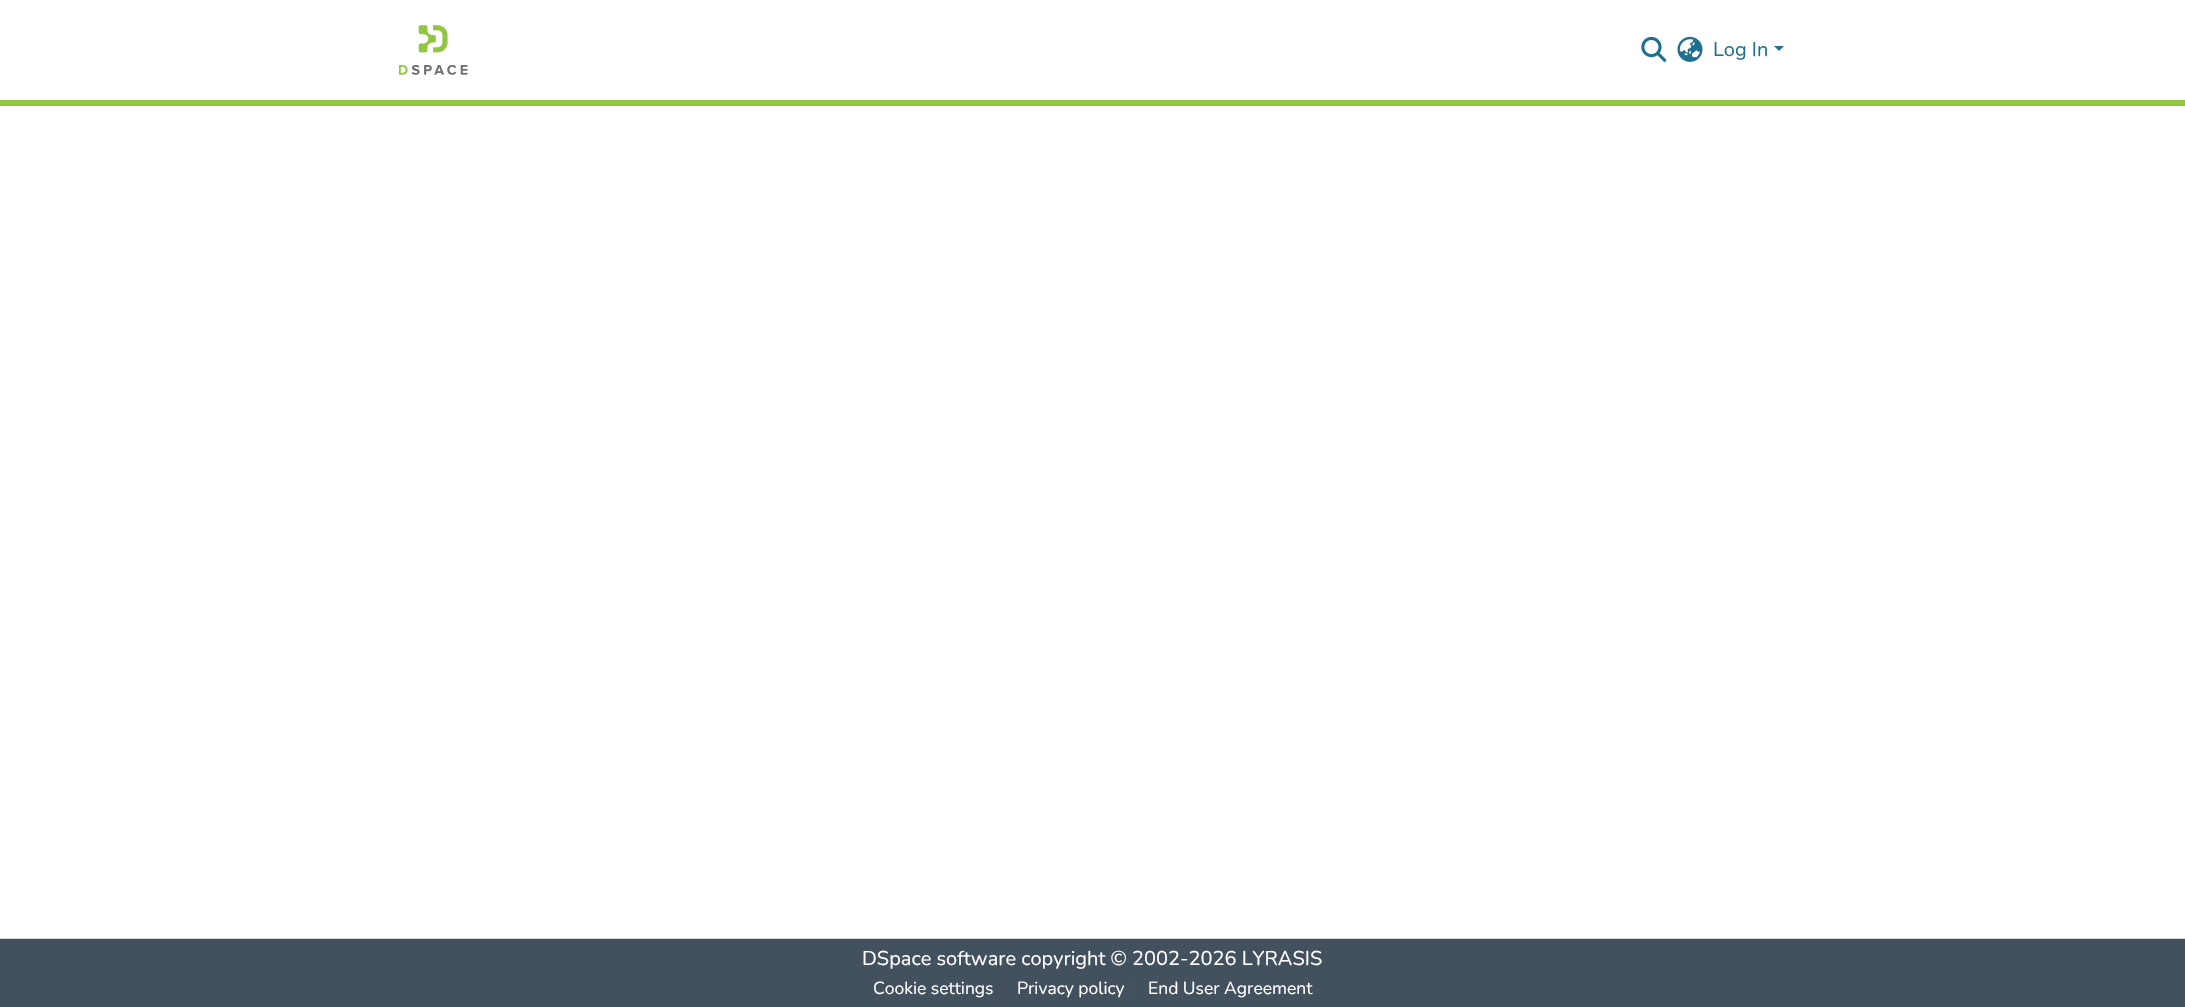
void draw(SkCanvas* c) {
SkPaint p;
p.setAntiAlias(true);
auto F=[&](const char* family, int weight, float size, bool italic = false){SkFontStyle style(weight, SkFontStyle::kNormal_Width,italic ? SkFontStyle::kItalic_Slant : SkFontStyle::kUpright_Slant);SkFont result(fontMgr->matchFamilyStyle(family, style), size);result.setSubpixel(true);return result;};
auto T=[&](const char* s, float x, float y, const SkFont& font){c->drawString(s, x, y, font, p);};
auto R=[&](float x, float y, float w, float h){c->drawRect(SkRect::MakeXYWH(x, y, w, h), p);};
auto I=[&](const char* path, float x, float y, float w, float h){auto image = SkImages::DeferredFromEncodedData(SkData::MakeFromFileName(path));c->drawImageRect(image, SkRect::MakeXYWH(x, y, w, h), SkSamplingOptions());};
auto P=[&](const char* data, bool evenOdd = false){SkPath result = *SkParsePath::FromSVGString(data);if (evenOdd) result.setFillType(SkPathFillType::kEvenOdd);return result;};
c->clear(0xffffffff);
p.setColor(0xff92c642);
R(0,100,2185,6);
I("1.png",399,25,69,50);
I("2.png",1641,36,26,26);
I("3.png",1677,36,26,26);
auto f1 = F("Nunito",400,20);
p.setColor(0xff1e6f90);
T("Log In",1713,56,f1);
c->drawPath(P("M1774 46h10l-5 5z"),p);
p.setColor(0xff43515f);
R(0,939,2185,68);
p.setColor(0xffced4da);
R(0,938,2185,1);
p.setColor(0xffffffff);
T("DSpace software copyright © 2002-2026 LYRASIS",862,965,f1);
auto f2 = F("Nunito",400,17.5);
T("Cookie settings",873,994,f2);
p.setColor(0xff495057);
R(1004,974,1,29);
p.setColor(0xffffffff);
T("Privacy policy",1017,994,f2);
p.setColor(0xff495057);
R(1135,974,1,29);
p.setColor(0xffffffff);
T("End User Agreement",1148,994,f2);
}
